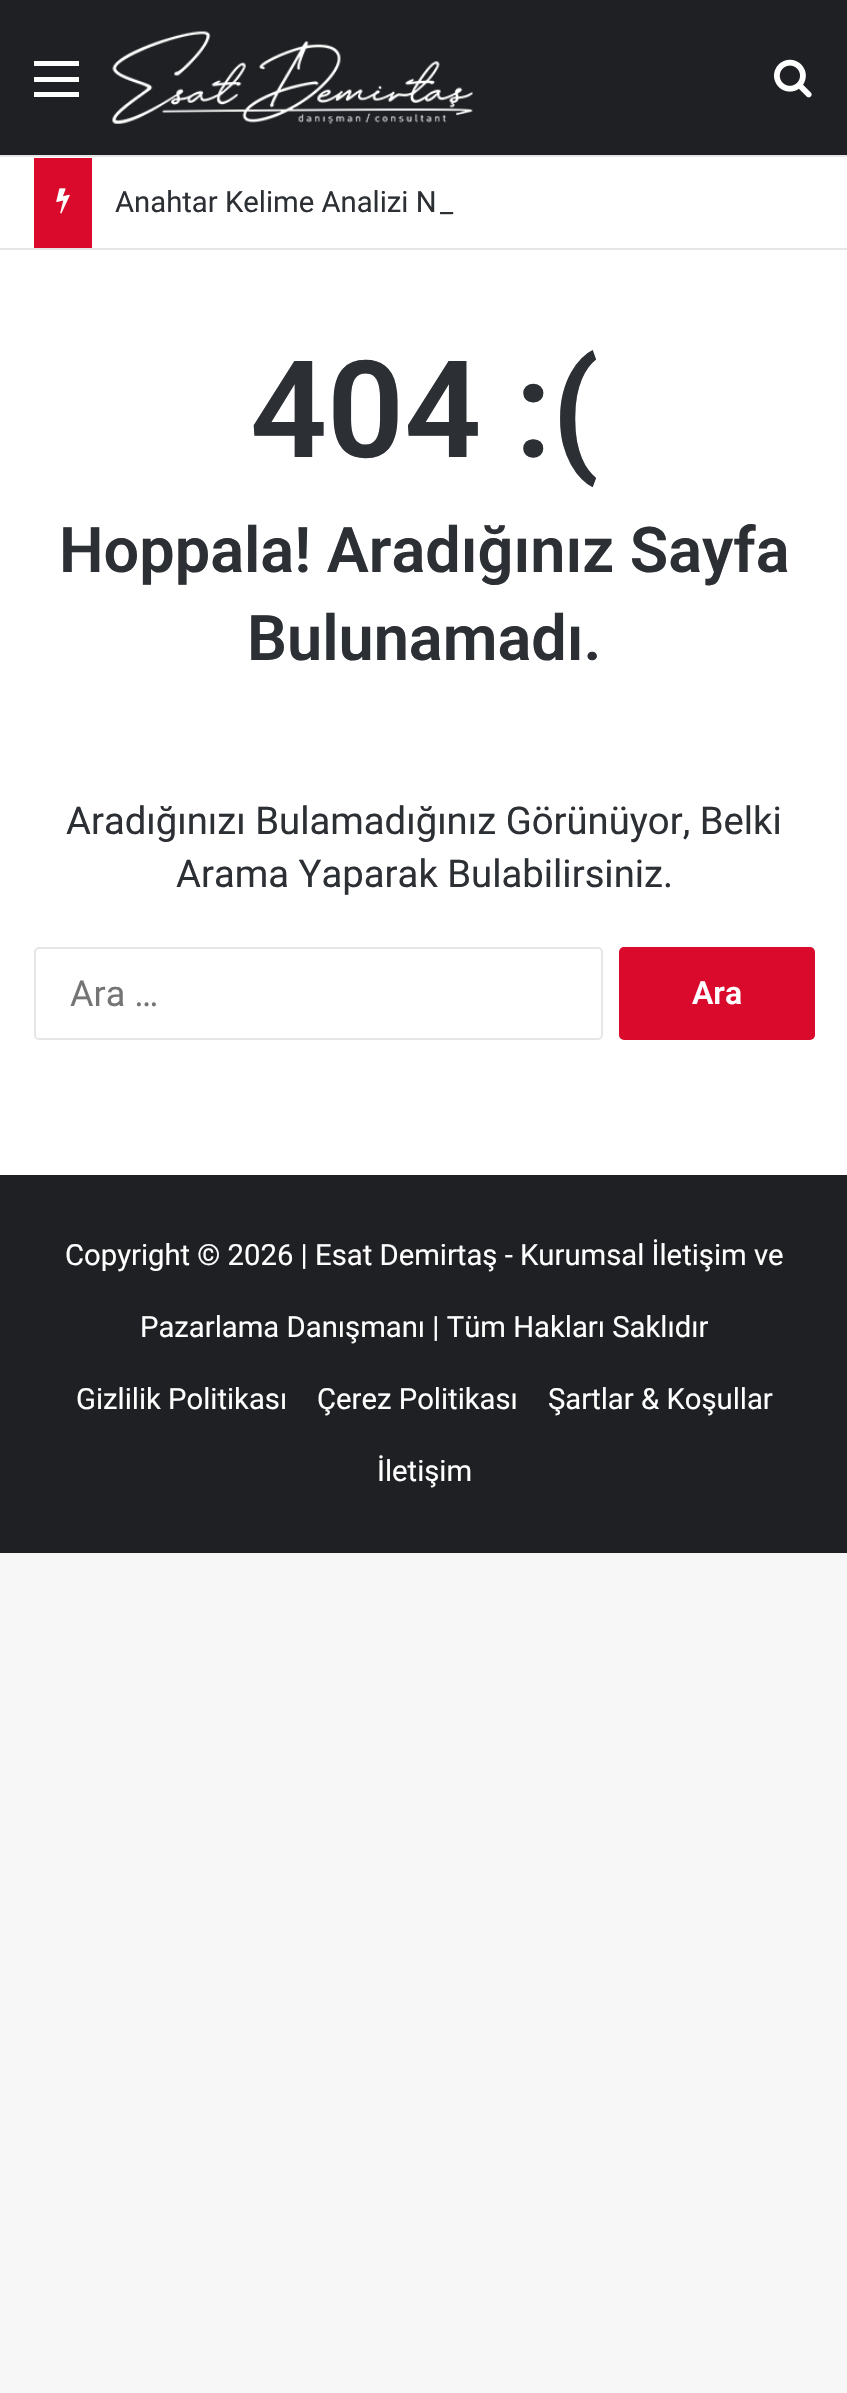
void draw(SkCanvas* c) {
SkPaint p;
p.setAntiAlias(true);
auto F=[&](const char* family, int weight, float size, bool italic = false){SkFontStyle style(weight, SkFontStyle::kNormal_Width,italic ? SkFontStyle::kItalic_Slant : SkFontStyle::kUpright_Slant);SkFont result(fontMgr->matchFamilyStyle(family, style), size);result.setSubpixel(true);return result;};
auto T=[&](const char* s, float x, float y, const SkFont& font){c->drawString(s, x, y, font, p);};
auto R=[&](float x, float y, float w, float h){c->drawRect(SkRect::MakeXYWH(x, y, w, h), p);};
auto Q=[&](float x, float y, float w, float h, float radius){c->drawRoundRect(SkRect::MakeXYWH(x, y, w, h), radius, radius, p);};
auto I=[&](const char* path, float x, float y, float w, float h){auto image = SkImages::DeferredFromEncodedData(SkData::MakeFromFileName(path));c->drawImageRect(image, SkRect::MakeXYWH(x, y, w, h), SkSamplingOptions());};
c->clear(0xfff7f7f7);
p.setColor(0xffffffff);
R(0,157,847,1018);
p.setColor(0xff1f2024);
R(0,0,847,155);
p.setColor(0xffffffff);
R(34,77,45,5);
R(34,61,45,5);
R(34,92,45,5);
I("1.png",112,31,361,93);
I("2.png",774,59,38,39);
p.setColor(0xffe6e6e6);
R(0,155,847,2);
R(0,248,847,2);
p.setColor(0xffd90a2c);
R(34,158,58,90);
I("3.png",56,188,14,26);
auto f1 = F("Roboto",400,29.25);
p.setColor(0xff2c2f34);
T("Anahtar Kelime Analizi N",115,212,f1);
T("_",440,212,f1);
auto f2 = F("Roboto",600,135);
T("404 :(",250,457,f2);
auto f3 = F("Roboto",600,63);
T("Hoppala! Aradığınız Sayfa",59,572,f3);
T("Bulunamadı.",247,660,f3);
auto f4 = F("Roboto",400,38.25);
T("Aradığınızı Bulamadığınız Görünüyor, Belki",66,834,f4);
T("Arama Yaparak Bulabilirsiniz.",176,887,f4);
p.setStroke(true);
p.setStrokeWidth(2);
p.setColor(0xffe6e6e6);
c->drawRoundRect(SkRect::MakeXYWH(35,948,567,91),4,4,p);
auto f5 = F("Roboto",400,36);
p.setStroke(false);
p.setColor(0xff757575);
T("Ara …",70,1006,f5);
p.setColor(0xffd90a2c);
Q(619,947,196,93,5);
auto f6 = F("Roboto",600,32);
p.setColor(0xffffffff);
T("Ara",692,1004,f6);
p.setColor(0xff1f2024);
R(0,1175,847,378);
p.setColor(0xffffffff);
T("Copyright © 2026 | Esat Demirtaş - Kurumsal İletişim ve",65,1265,f1);
T("Pazarlama Danışmanı | Tüm Hakları Saklıdır",140,1337,f1);
T("Gizlilik Politikası",76,1409,f1);
T("Çerez Politikası",317,1409,f1);
T("Şartlar & Koşullar",548,1409,f1);
T("İletişim",377,1481,f1);
}
